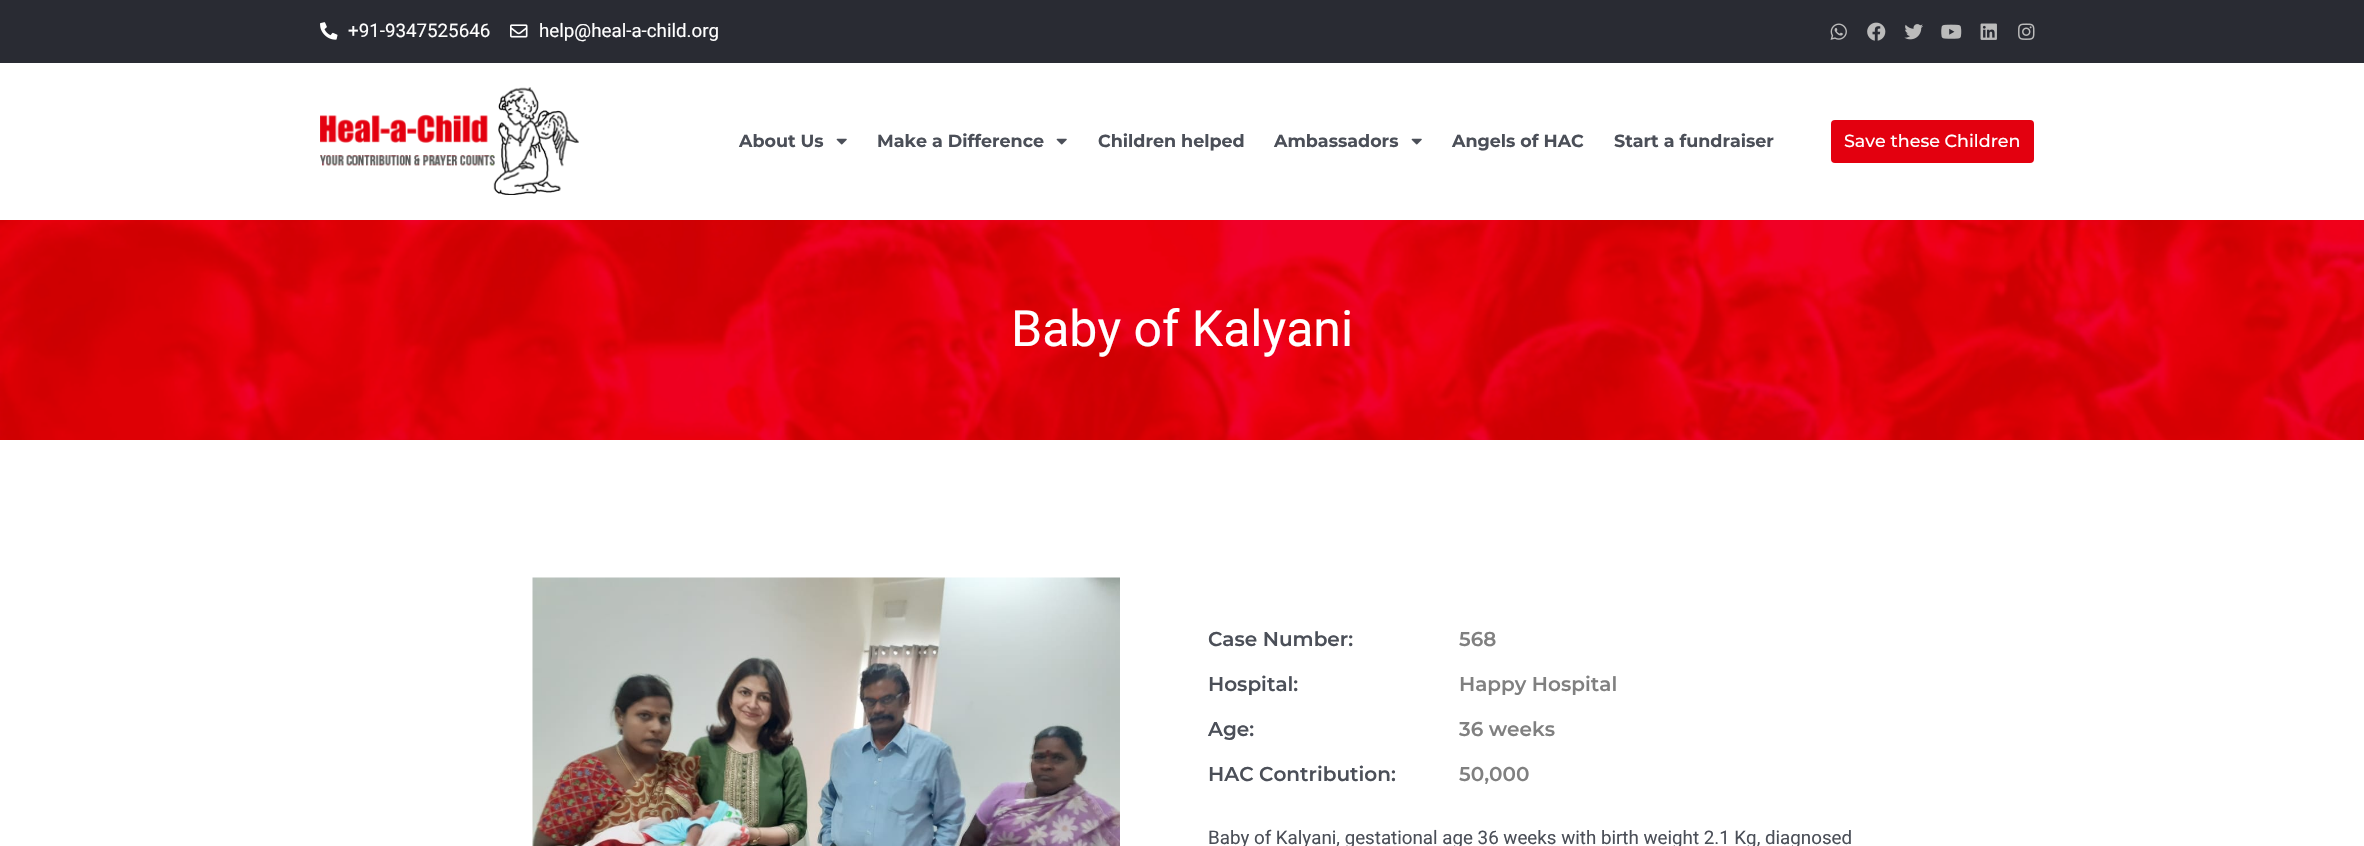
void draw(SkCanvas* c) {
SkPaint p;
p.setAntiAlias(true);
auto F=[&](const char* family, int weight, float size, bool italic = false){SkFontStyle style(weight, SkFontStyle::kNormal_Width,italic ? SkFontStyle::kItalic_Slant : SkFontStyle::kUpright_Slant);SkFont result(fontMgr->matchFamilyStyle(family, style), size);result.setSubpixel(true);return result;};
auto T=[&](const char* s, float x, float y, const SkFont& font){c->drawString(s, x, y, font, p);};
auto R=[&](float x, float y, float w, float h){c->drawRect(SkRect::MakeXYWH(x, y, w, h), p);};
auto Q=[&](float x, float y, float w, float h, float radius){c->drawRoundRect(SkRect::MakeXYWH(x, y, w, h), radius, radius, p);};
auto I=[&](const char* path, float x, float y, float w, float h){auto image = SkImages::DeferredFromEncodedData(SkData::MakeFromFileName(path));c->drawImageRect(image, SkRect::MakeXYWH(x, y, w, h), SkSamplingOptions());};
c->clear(0xffffffff);
p.setColor(0xff292b33);
R(0,0,2364,63);
I("1.png",320,22,18,18);
auto f1 = F("Roboto",400,18.75);
p.setColor(0xffffffff);
T("+91-9347525646",348,37,f1);
I("2.png",510,24,18,14);
T("help@heal-a-child.org",539,37,f1);
I("3.png",1830,23,17,17);
I("4.png",1867,22,19,19);
I("5.png",1904,24,19,16);
I("6.png",1941,24,21,15);
I("7.png",1980,23,17,17);
I("8.png",2018,23,17,17);
I("9.png",320,87,259,108);
auto f2 = F("Montserrat",700,17.5);
p.setColor(0xff4b4f58);
T("About Us",739,147,f2);
I("10.png",836,138,11,7);
T("Make a Difference",877,147,f2);
I("10.png",1056,138,11,7);
T("Children helped",1098,147,f2);
T("Ambassadors",1274,147,f2);
I("10.png",1411,138,11,7);
T("Angels of HAC",1452,147,f2);
T("Start a fundraiser",1614,147,f2);
p.setColor(0xffe3000f);
Q(1831,120,203,43,4);
auto f3 = F("Montserrat",500,17.5);
p.setColor(0xffffffff);
T("Save these Children",1844,147,f3);
I("11.png",0,220,2364,220);
auto f4 = F("Roboto",400,50);
T("Baby of Kalyani",1011,346,f4);
I("12.png",532,577,588,269);
auto f5 = F("Montserrat",600,20);
p.setColor(0xff4b4f58);
T("Case Number:",1208,646,f5);
p.setColor(0xff808080);
T("568",1459,646,f5);
p.setColor(0xff4b4f58);
T("Hospital:",1208,691,f5);
p.setColor(0xff808080);
T("Happy Hospital",1459,691,f5);
p.setColor(0xff4b4f58);
T("Age:",1208,736,f5);
p.setColor(0xff808080);
T("36 weeks",1459,736,f5);
p.setColor(0xff4b4f58);
T("HAC Contribution:",1208,781,f5);
p.setColor(0xff808080);
T("50,000",1459,781,f5);
p.setColor(0xff4b4f58);
T("Baby of Kalyani, gestational age 36 weeks with birth weight 2.1 Kg, diagnosed",1208,844,f1);
}
